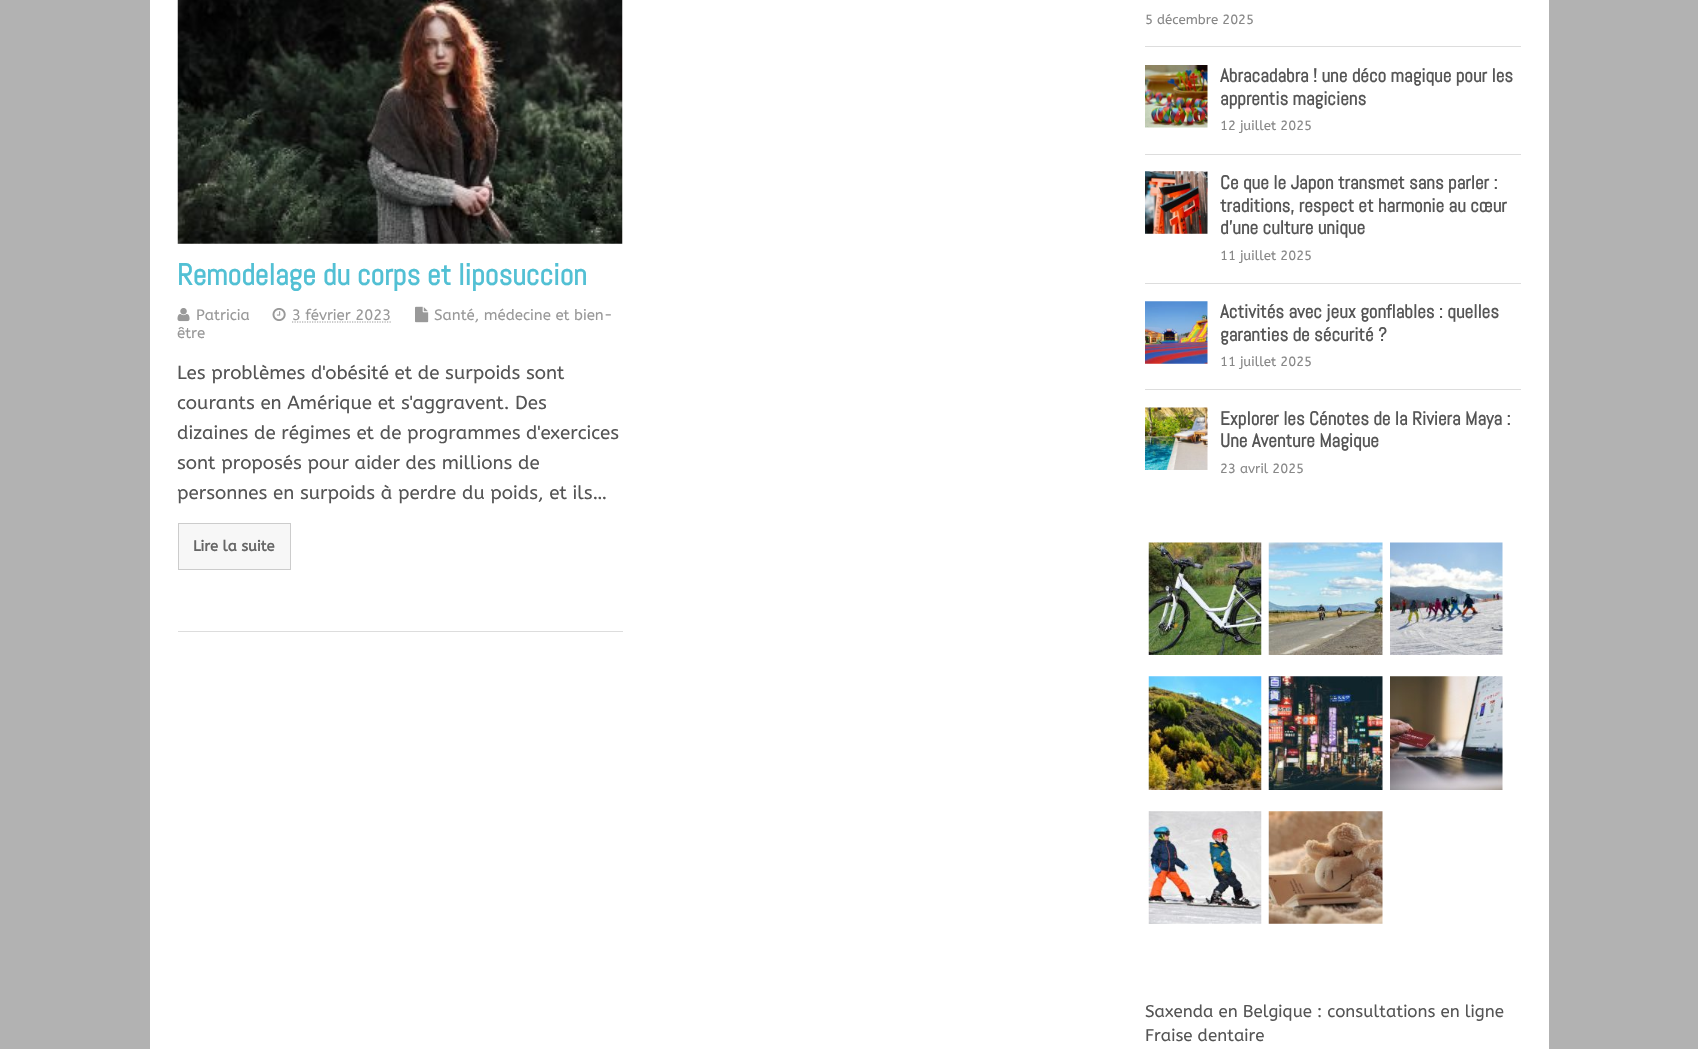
void draw(SkCanvas* c) {
SkPaint p;
p.setAntiAlias(true);
auto F=[&](const char* family, int weight, float size, bool italic = false){SkFontStyle style(weight, SkFontStyle::kNormal_Width,italic ? SkFontStyle::kItalic_Slant : SkFontStyle::kUpright_Slant);SkFont result(fontMgr->matchFamilyStyle(family, style), size);result.setSubpixel(true);return result;};
auto T=[&](const char* s, float x, float y, const SkFont& font){c->drawString(s, x, y, font, p);};
auto R=[&](float x, float y, float w, float h){c->drawRect(SkRect::MakeXYWH(x, y, w, h), p);};
auto I=[&](const char* path, float x, float y, float w, float h){auto image = SkImages::DeferredFromEncodedData(SkData::MakeFromFileName(path));c->drawImageRect(image, SkRect::MakeXYWH(x, y, w, h), SkSamplingOptions());};
auto P=[&](const char* data, bool evenOdd = false){SkPath result = *SkParsePath::FromSVGString(data);if (evenOdd) result.setFillType(SkPathFillType::kEvenOdd);return result;};
c->clear(0xffb2b2b2);
p.setColor(0xffffffff);
R(150,0,1399,1049);
p.setColor(0xffdddddd);
R(178,631,445,1);
I("1.png",177,0,446,244);
auto f1 = F("Abel",700,30);
p.setColor(0xff52c0d4);
T("Remodelage du corps et liposuccion",177,285,f1);
I("2.png",415,306,14,17);
auto f2 = F("ABeeZee",400,15);
p.setColor(0xff999999);
T("Santé, médecine et bien-",434,320,f2);
T("être",177,338,f2);
I("3.png",177,308,13,14);
T("Patricia",196,320,f2);
I("4.png",272,308,14,13);
T("3 février 2023",292,320,f2);
p.setStroke(true);
p.setStrokeWidth(1.2);
p.setPathEffect(SkDashPathEffect::Make({{1.25f,1.25f}}, 0));
c->drawPath(P("M292 322h99.5"),p);
p.setPathEffect(nullptr);
auto f3 = F("ABeeZee",400,18.75);
p.setStroke(false);
p.setColor(0xff555555);
T("Les problèmes d'obésité et de surpoids sont",177,379,f3);
T("courants en Amérique et s'aggravent. Des",177,409,f3);
T("dizaines de régimes et de programmes d'exercices",177,439,f3);
T("sont proposés pour aider des millions de",177,469,f3);
T("personnes en surpoids à perdre du poids, et ils…",177,499,f3);
p.setColor(0xfff7f7f7);
c->drawRect(SkRect::MakeXYWH(178.5,523.5,112,46),p);
p.setStroke(true);
p.setStrokeWidth(1);
p.setColor(0xffcccccc);
c->drawRect(SkRect::MakeXYWH(178.5,523.5,112,46),p);
auto f4 = F("ABeeZee",700,14.75);
p.setStroke(false);
p.setColor(0xff666666);
T("Lire la suite",193,551,f4);
p.setColor(0xffdddddd);
R(1145,46,376,1);
auto f5 = F("ABeeZee",400,13.25);
p.setColor(0xff888888);
T("5 décembre 2025",1145,24,f5);
p.setColor(0xffdddddd);
R(1145,154,376,1);
I("5.png",1145,65,63,63);
auto f6 = F("Abel",700,19);
p.setColor(0xff555555);
T("Abracadabra ! une déco magique pour les",1220,82,f6);
T("apprentis magiciens",1220,105,f6);
p.setColor(0xff888888);
T("12 juillet 2025",1220,130,f5);
p.setColor(0xffdddddd);
R(1145,283,376,1);
I("6.png",1145,171,63,63);
p.setColor(0xff555555);
T("Ce que le Japon transmet sans parler :",1220,189,f6);
T("traditions, respect et harmonie au cœur",1220,212,f6);
T("d’une culture unique",1220,234,f6);
p.setColor(0xff888888);
T("11 juillet 2025",1220,260,f5);
p.setColor(0xffdddddd);
R(1145,389,376,1);
I("7.png",1145,301,63,63);
p.setColor(0xff555555);
T("Activités avec jeux gonflables : quelles",1220,318,f6);
T("garanties de sécurité ?",1220,341,f6);
p.setColor(0xff888888);
T("11 juillet 2025",1220,366,f5);
I("8.png",1145,407,63,63);
p.setColor(0xff555555);
T("Explorer les Cénotes de la Riviera Maya :",1220,425,f6);
T("Une Aventure Magique",1220,447,f6);
p.setColor(0xff888888);
T("23 avril 2025",1220,473,f5);
I("9.png",1148,542,114,113);
I("10.png",1268,542,115,113);
I("11.png",1390,542,113,113);
I("12.png",1148,676,114,114);
I("13.png",1268,676,115,114);
I("14.png",1390,676,113,114);
I("15.png",1148,811,114,113);
I("16.png",1268,811,115,113);
auto f7 = F("ABeeZee",400,16.9);
p.setColor(0xff555555);
T("Saxenda en Belgique : consultations en ligne",1145,1017,f7);
T("Fraise dentaire",1145,1041,f7);
}
